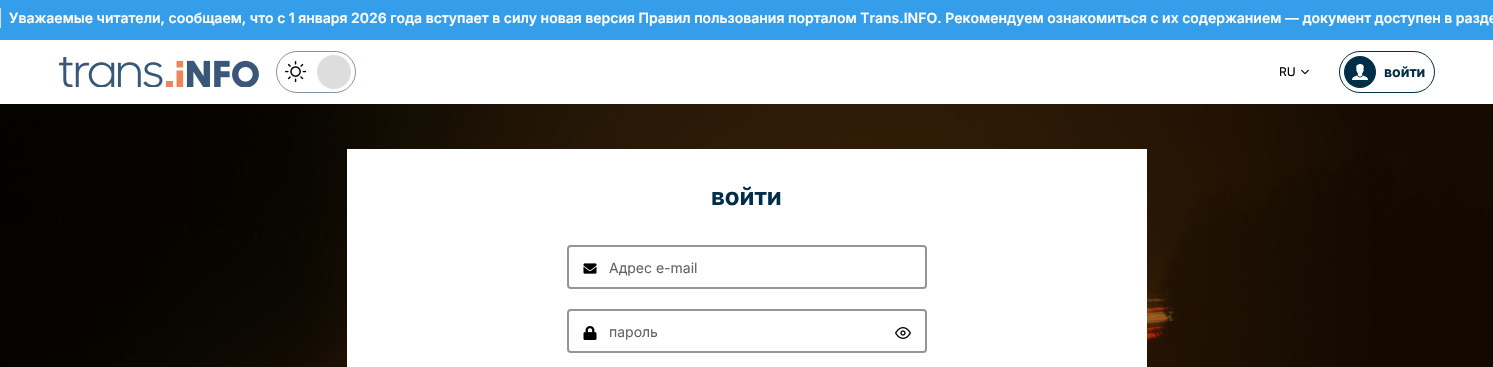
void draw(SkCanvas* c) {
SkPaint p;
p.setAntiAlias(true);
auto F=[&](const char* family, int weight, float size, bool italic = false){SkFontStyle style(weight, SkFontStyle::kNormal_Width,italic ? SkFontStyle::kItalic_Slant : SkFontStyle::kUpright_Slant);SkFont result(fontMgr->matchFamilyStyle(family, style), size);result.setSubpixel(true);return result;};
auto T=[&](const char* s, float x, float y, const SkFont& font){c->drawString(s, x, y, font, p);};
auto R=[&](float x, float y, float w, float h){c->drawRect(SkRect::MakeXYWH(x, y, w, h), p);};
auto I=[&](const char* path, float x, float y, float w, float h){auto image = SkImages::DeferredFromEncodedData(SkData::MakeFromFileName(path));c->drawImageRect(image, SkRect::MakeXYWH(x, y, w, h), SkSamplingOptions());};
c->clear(0xffffffff);
p.setColor(0xff349eeb);
R(0,0,1493,40);
p.setColor(0xffdddddd);
R(0,8,1,20);
auto f1 = F("Inter",600,14);
p.setColor(0xffffffff);
T("Уважаемые читатели, сообщаем, что с 1 января 2026 года вступает в силу новая версия Правил пользования порталом Trans.INFO. Рекомендуем ознакомиться с их содержанием — документ доступен в разде",9,23,f1);
I("1.png",59,57,200,30);
p.setStroke(true);
p.setStrokeWidth(1);
p.setColor(0xff8096a4);
c->drawRoundRect(SkRect::MakeXYWH(276.5,51.5,79,41),20.5,20.5,p);
I("2.png",285,61,22,22);
p.setStroke(false);
p.setColor(0xffdddddd);
c->drawCircle(334,72,17,p);
auto f2 = F("Inter",400,12);
p.setColor(0xff000000);
T("RU",1279,76,f2);
I("3.png",1301,69,8,6);
p.setStroke(true);
p.setColor(0xff002d48);
c->drawRoundRect(SkRect::MakeXYWH(1339.5,51.5,95,41),20.5,20.5,p);
p.setStroke(false);
c->drawCircle(1360,72,16,p);
I("4.png",1352,64,16,16);
auto f3 = F("Inter",700,14);
T("войти",1384,77,f3);
I("5.png",0,104,1493,263);
p.setColor(0xffffffff);
R(347,149,800,218);
auto f4 = F("Inter",700,24);
p.setColor(0xff002d48);
T("войти",711,205,f4);
p.setStroke(true);
p.setStrokeWidth(2);
p.setColor(0xff949494);
c->drawRoundRect(SkRect::MakeXYWH(568,246,358,42),3,3,p);
I("6.png",583,263,14,11);
auto f5 = F("Inter",400,14);
p.setStroke(false);
p.setColor(0xff646464);
T("Адрес e-mail",609,273,f5);
p.setStroke(true);
p.setColor(0xff949494);
c->drawRoundRect(SkRect::MakeXYWH(568,310,358,42),3,3,p);
I("7.png",583,326,14,14);
p.setStroke(false);
p.setColor(0xff646464);
T("пароль",609,337,f5);
I("8.png",895,327,16,12);
}
